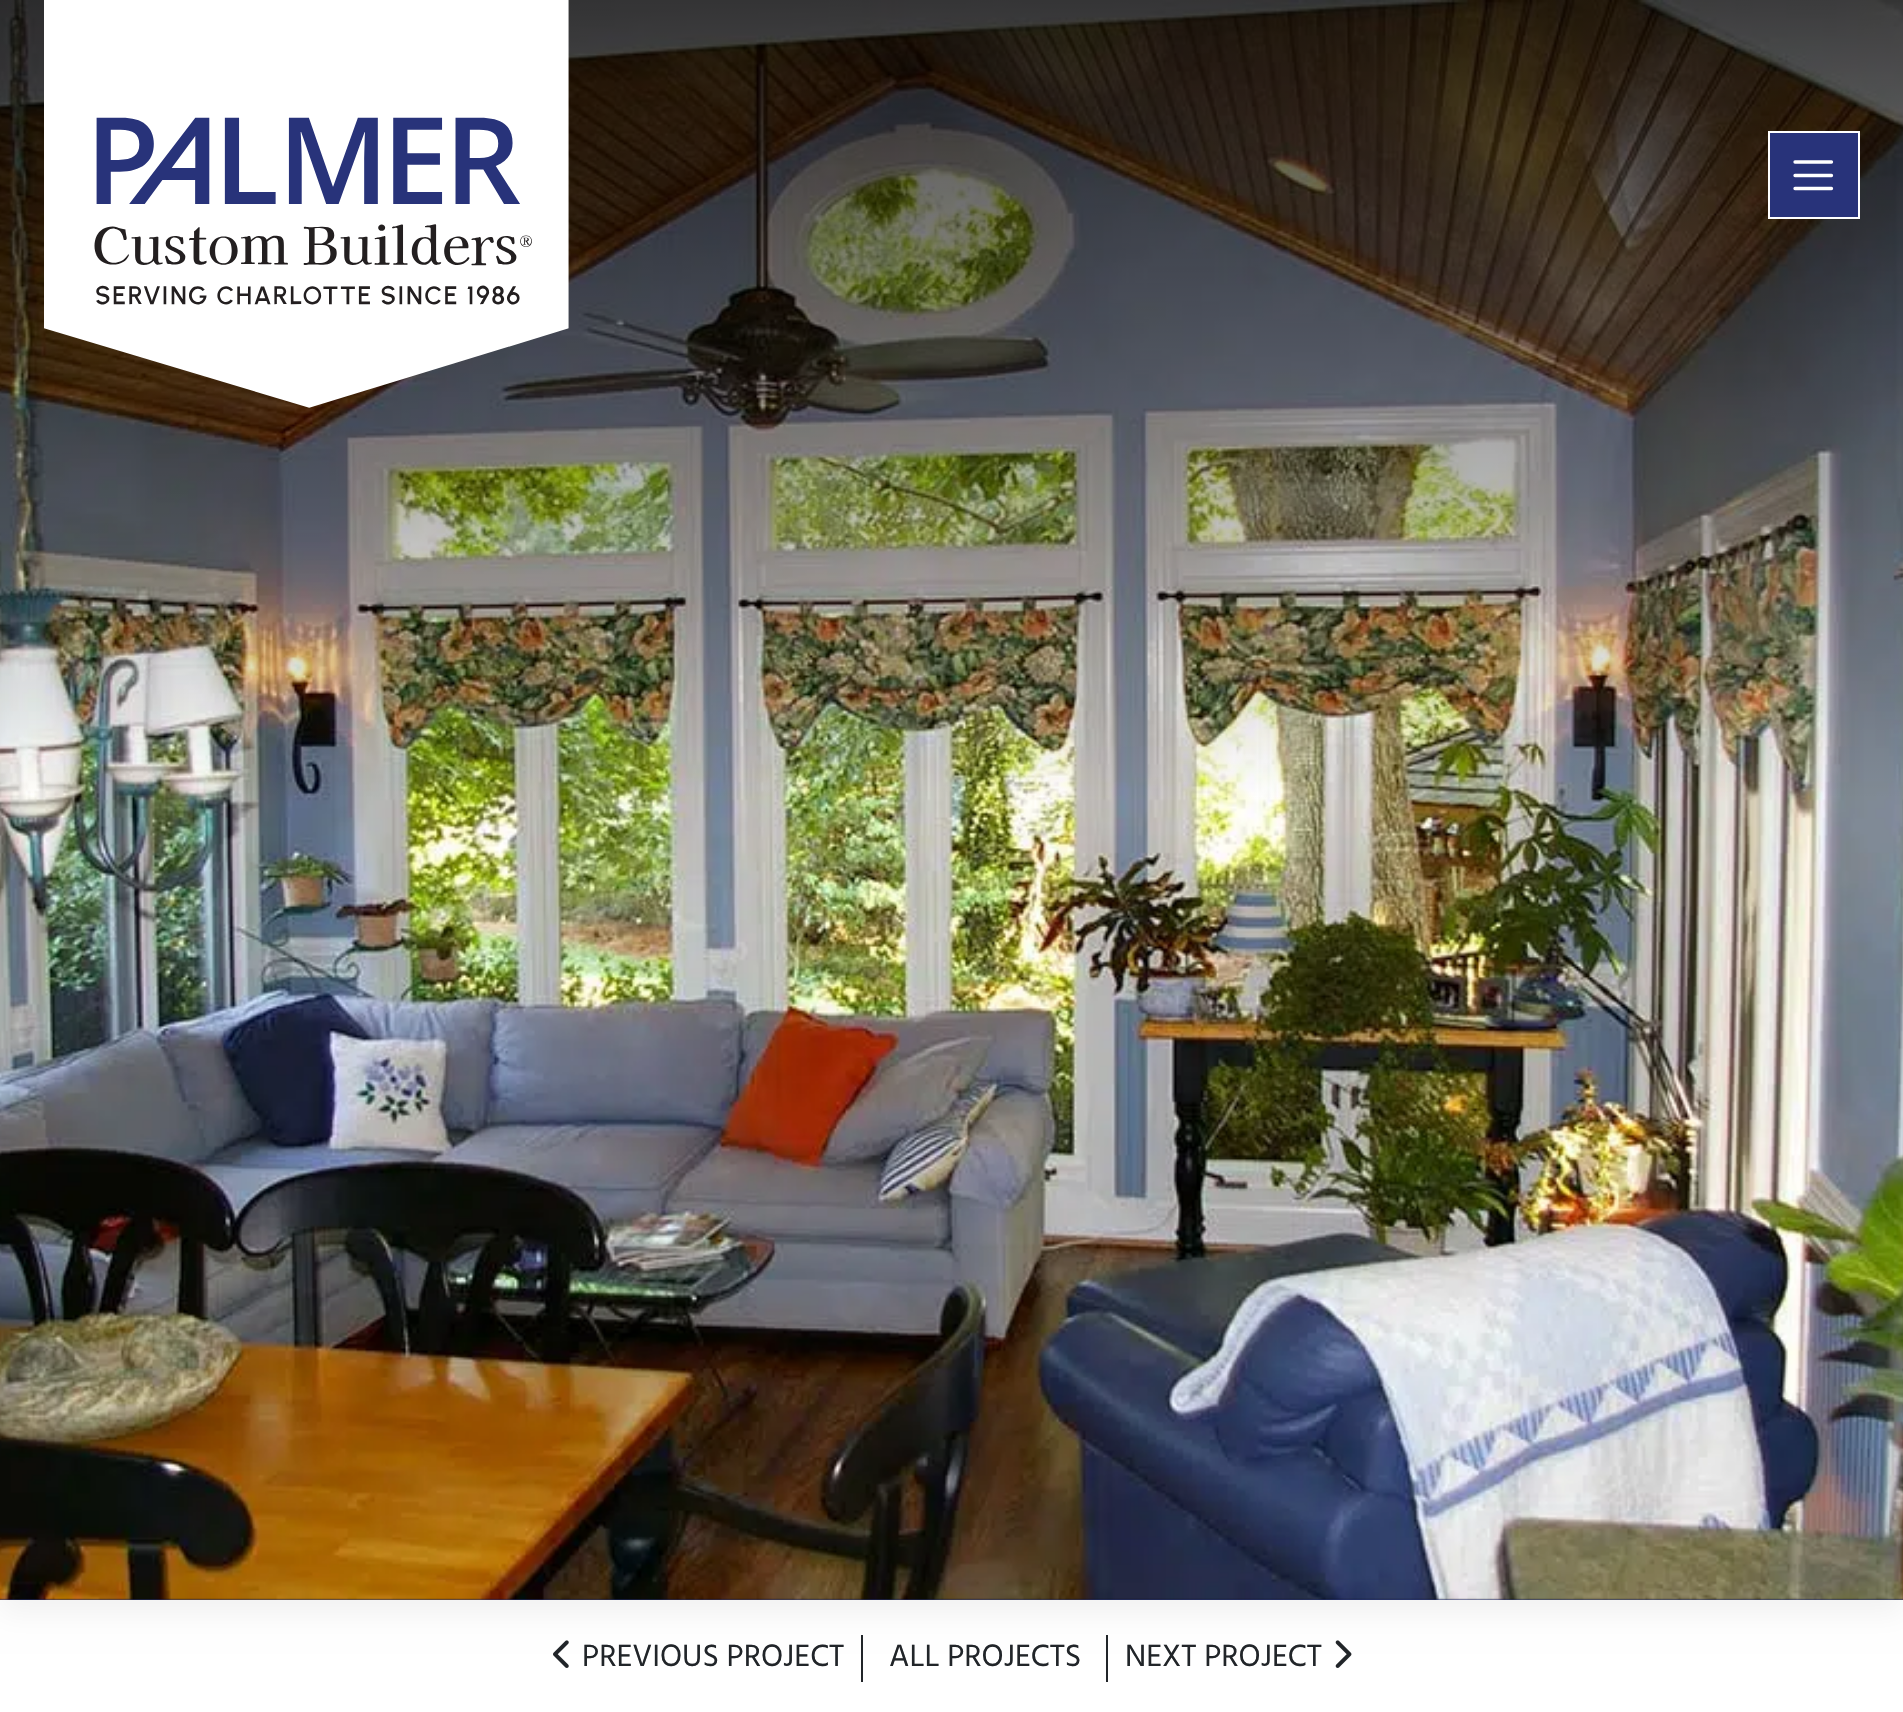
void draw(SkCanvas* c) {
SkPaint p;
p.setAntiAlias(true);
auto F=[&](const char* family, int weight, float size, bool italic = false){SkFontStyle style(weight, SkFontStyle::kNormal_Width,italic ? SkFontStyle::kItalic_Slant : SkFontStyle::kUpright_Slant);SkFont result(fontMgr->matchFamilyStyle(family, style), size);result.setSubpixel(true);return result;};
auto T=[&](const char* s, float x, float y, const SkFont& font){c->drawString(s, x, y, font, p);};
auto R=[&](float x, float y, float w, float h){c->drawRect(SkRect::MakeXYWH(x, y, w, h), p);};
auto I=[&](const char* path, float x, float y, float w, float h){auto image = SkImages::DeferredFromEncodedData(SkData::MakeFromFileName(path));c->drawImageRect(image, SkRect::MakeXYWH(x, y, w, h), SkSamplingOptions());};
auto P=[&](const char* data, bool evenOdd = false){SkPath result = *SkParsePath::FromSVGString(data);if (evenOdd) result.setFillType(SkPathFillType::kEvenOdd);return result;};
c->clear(0xffffffff);
p.setColor(0x0d000000);
p.setMaskFilter(SkMaskFilter::MakeBlur(kNormal_SkBlurStyle, 13.5));
c->drawRect(SkRect::MakeXYWH(0,14,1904,1600),p);
p.setMaskFilter(nullptr);
p.setColor(0xff28337a);
R(0,1599,1903,1);
I("1.png",0,0,1903,1600);
p.setColor(0x1a000000);
R(0,1598,1903,2);
I("2.png",44,0,525,408);
p.setColor(0xff28337a);
c->drawRect(SkRect::MakeXYWH(1769,132,90,86),p);
p.setStroke(true);
p.setStrokeWidth(2);
p.setColor(0xffffffff);
c->drawRect(SkRect::MakeXYWH(1769,132,90,86),p);
p.setStrokeWidth(3.3);
p.setStrokeCap(SkPaint::kRound_Cap);
c->drawPath(P("M1795 162h36.5m-36.5 13.5h36.5m-36.5 13h36.5"),p);
p.setStroke(false);
p.setColor(0xff212529);
R(861,1635,2,47);
I("3.png",553,1640,16,28);
auto f1 = F("Hind",400,31.5);
T("PREVIOUS PROJECT",582,1666,f1);
T("ALL PROJECTS",889,1666,f1);
R(1106,1635,2,47);
T("NEXT PROJECT",1125,1666,f1);
I("4.png",1335,1640,17,28);
}
